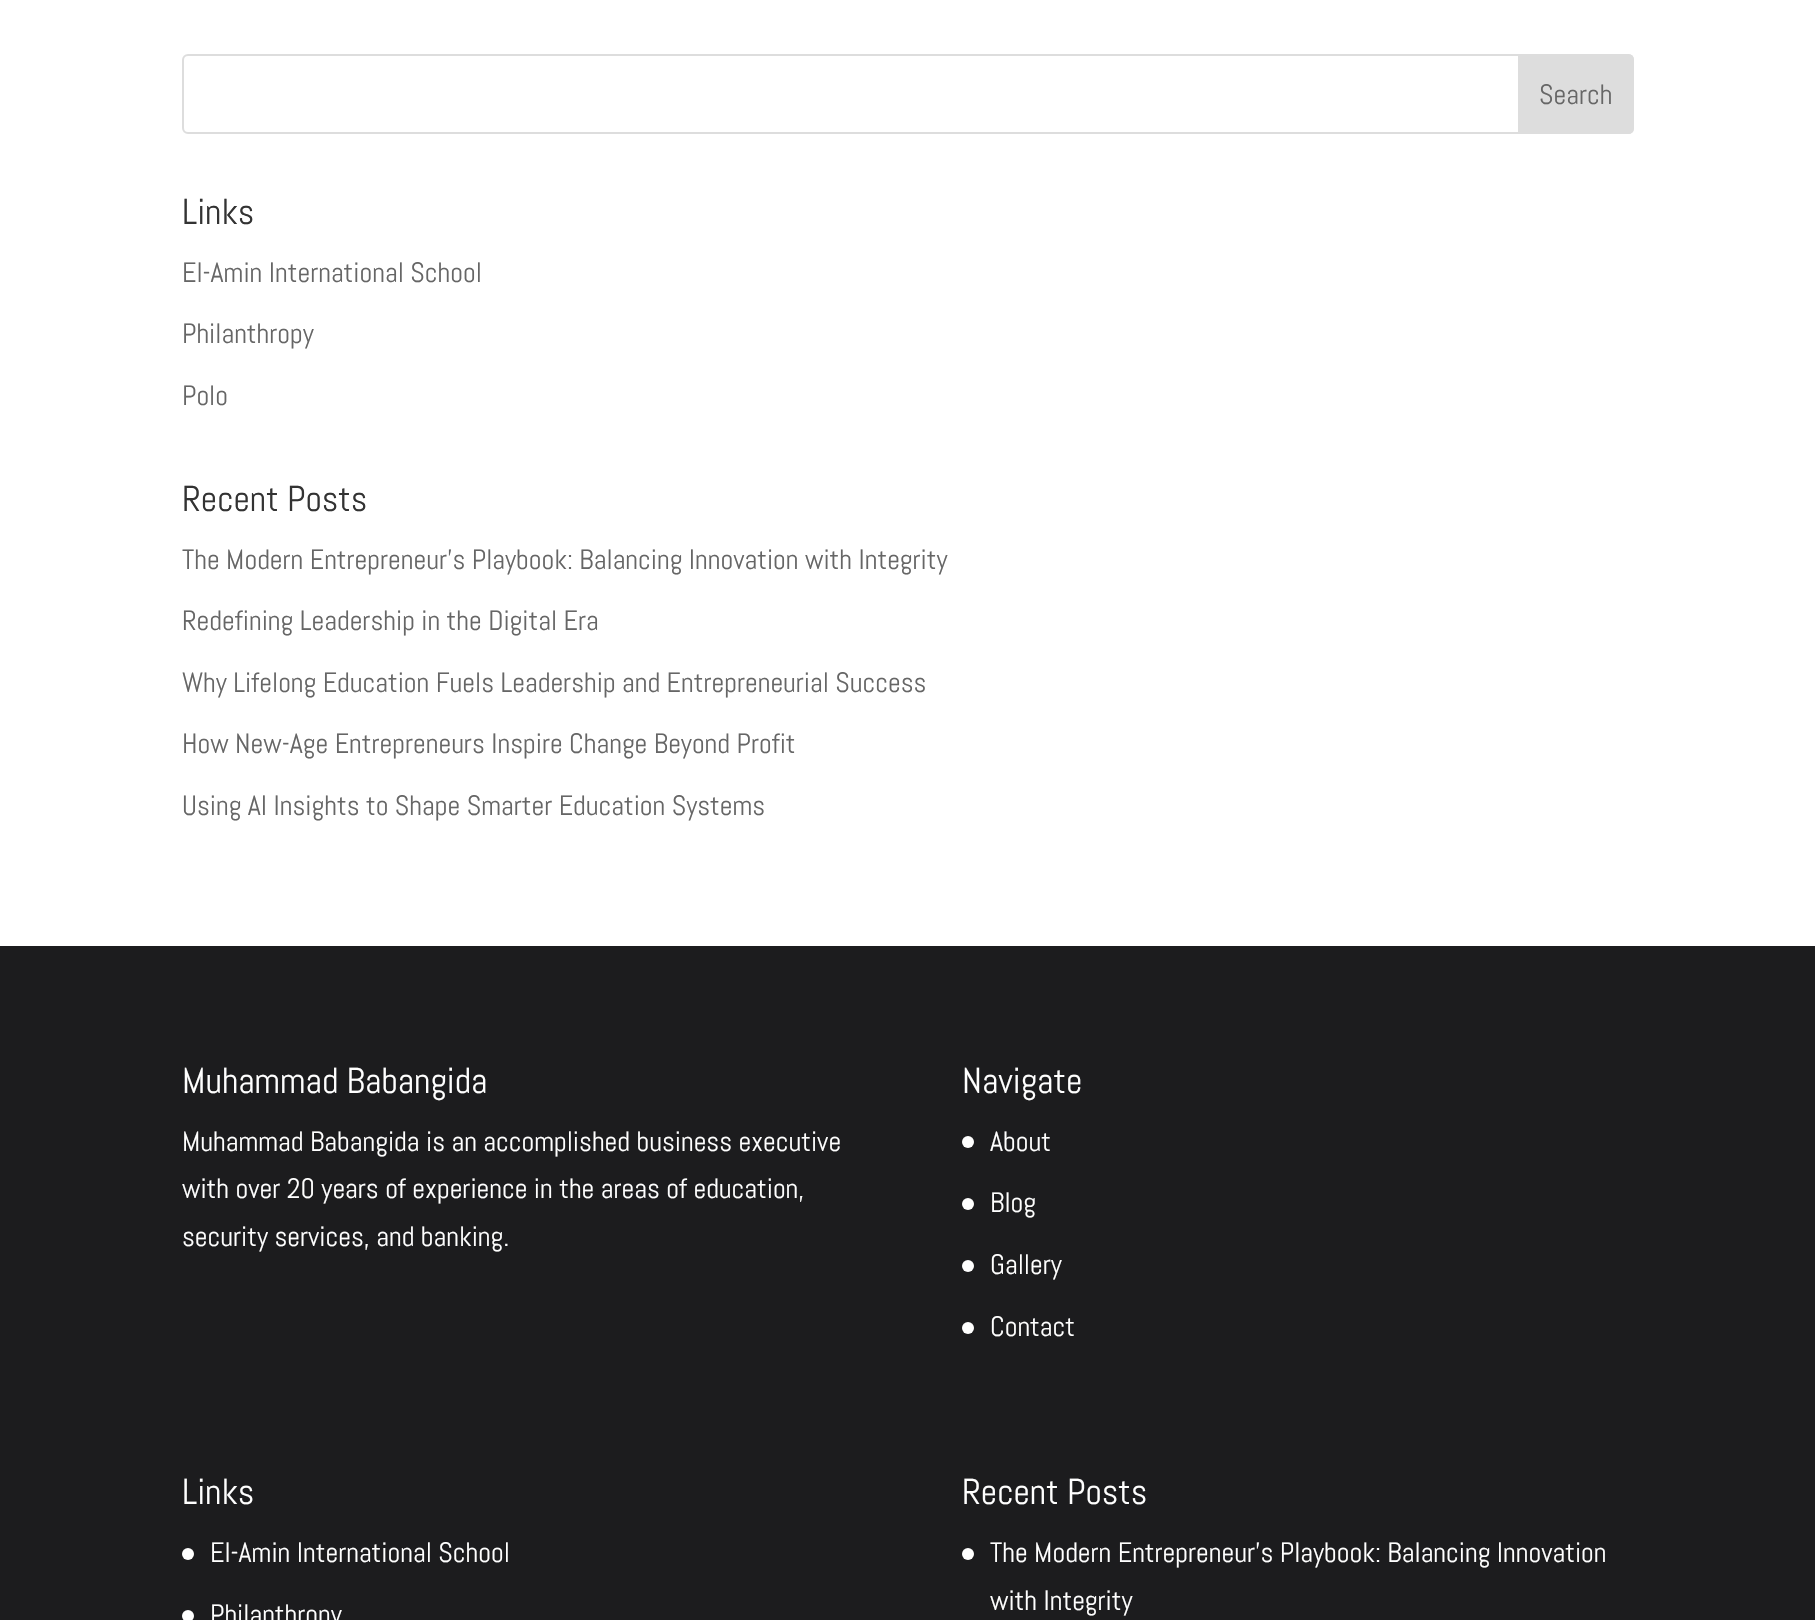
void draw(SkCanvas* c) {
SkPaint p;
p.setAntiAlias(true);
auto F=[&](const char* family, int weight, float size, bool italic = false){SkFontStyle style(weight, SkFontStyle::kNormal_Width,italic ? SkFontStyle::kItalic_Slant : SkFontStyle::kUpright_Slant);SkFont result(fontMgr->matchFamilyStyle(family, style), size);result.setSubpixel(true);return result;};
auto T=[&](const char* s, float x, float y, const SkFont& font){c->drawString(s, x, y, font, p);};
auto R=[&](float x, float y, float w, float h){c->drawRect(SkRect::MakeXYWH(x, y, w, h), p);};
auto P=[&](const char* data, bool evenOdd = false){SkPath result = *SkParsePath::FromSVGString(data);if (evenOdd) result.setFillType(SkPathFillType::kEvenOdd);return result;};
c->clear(0xffffffff);
p.setStroke(true);
p.setStrokeWidth(2);
p.setColor(0xffdddddd);
c->drawRoundRect(SkRect::MakeXYWH(183,55,1450,78),5,5,p);
p.setStroke(false);
c->drawPath(P("M1519 55h109c3 0 5 2 5 5v68c0 3-2 5-5 5h-109z"),p);
p.setStroke(true);
c->drawPath(P("M1519 55h109c3 0 5 2 5 5v68c0 3-2 5-5 5h-109z"),p);
auto f1 = F("Abel",400,28);
p.setStroke(false);
p.setColor(0xff666666);
T("Search",1539,104,f1);
auto f2 = F("Abel",400,36);
p.setColor(0xff333333);
T("Links",182,224,f2);
p.setColor(0xff666666);
T("El-Amin International School",182,282,f1);
T("Philanthropy",182,343,f1);
T("Polo",182,405,f1);
p.setColor(0xff333333);
T("Recent Posts",182,511,f2);
p.setColor(0xff666666);
T("The Modern Entrepreneur’s Playbook: Balancing Innovation with Integrity",182,569,f1);
T("Redefining Leadership in the Digital Era",182,630,f1);
T("Why Lifelong Education Fuels Leadership and Entrepreneurial Success",182,692,f1);
T("How New-Age Entrepreneurs Inspire Change Beyond Profit",182,753,f1);
T("Using AI Insights to Shape Smarter Education Systems",182,815,f1);
p.setColor(0xff1c1c1e);
R(0,946,1815,674);
p.setColor(0xffffffff);
T("Muhammad Babangida",182,1093,f2);
T("Muhammad Babangida is an accomplished business executive",182,1151,f1);
T("with over 20 years of experience in the areas of education,",182,1198,f1);
T("security services, and banking.",182,1246,f1);
T("Navigate",962,1093,f2);
c->drawCircle(968,1142,6,p);
T("About",990,1151,f1);
c->drawCircle(968,1204,6,p);
T("Blog",990,1212,f1);
c->drawCircle(968,1266,6,p);
T("Gallery",990,1274,f1);
c->drawCircle(968,1328,6,p);
T("Contact",990,1336,f1);
T("Links",182,1504,f2);
c->drawCircle(188,1554,6,p);
T("El-Amin International School",210,1562,f1);
c->drawCircle(188,1616,6,p);
T("Philanthropy",210,1624,f1);
T("Recent Posts",962,1504,f2);
c->drawCircle(968,1554,6,p);
T("The Modern Entrepreneur’s Playbook: Balancing Innovation",990,1562,f1);
T("with Integrity",990,1610,f1);
}
